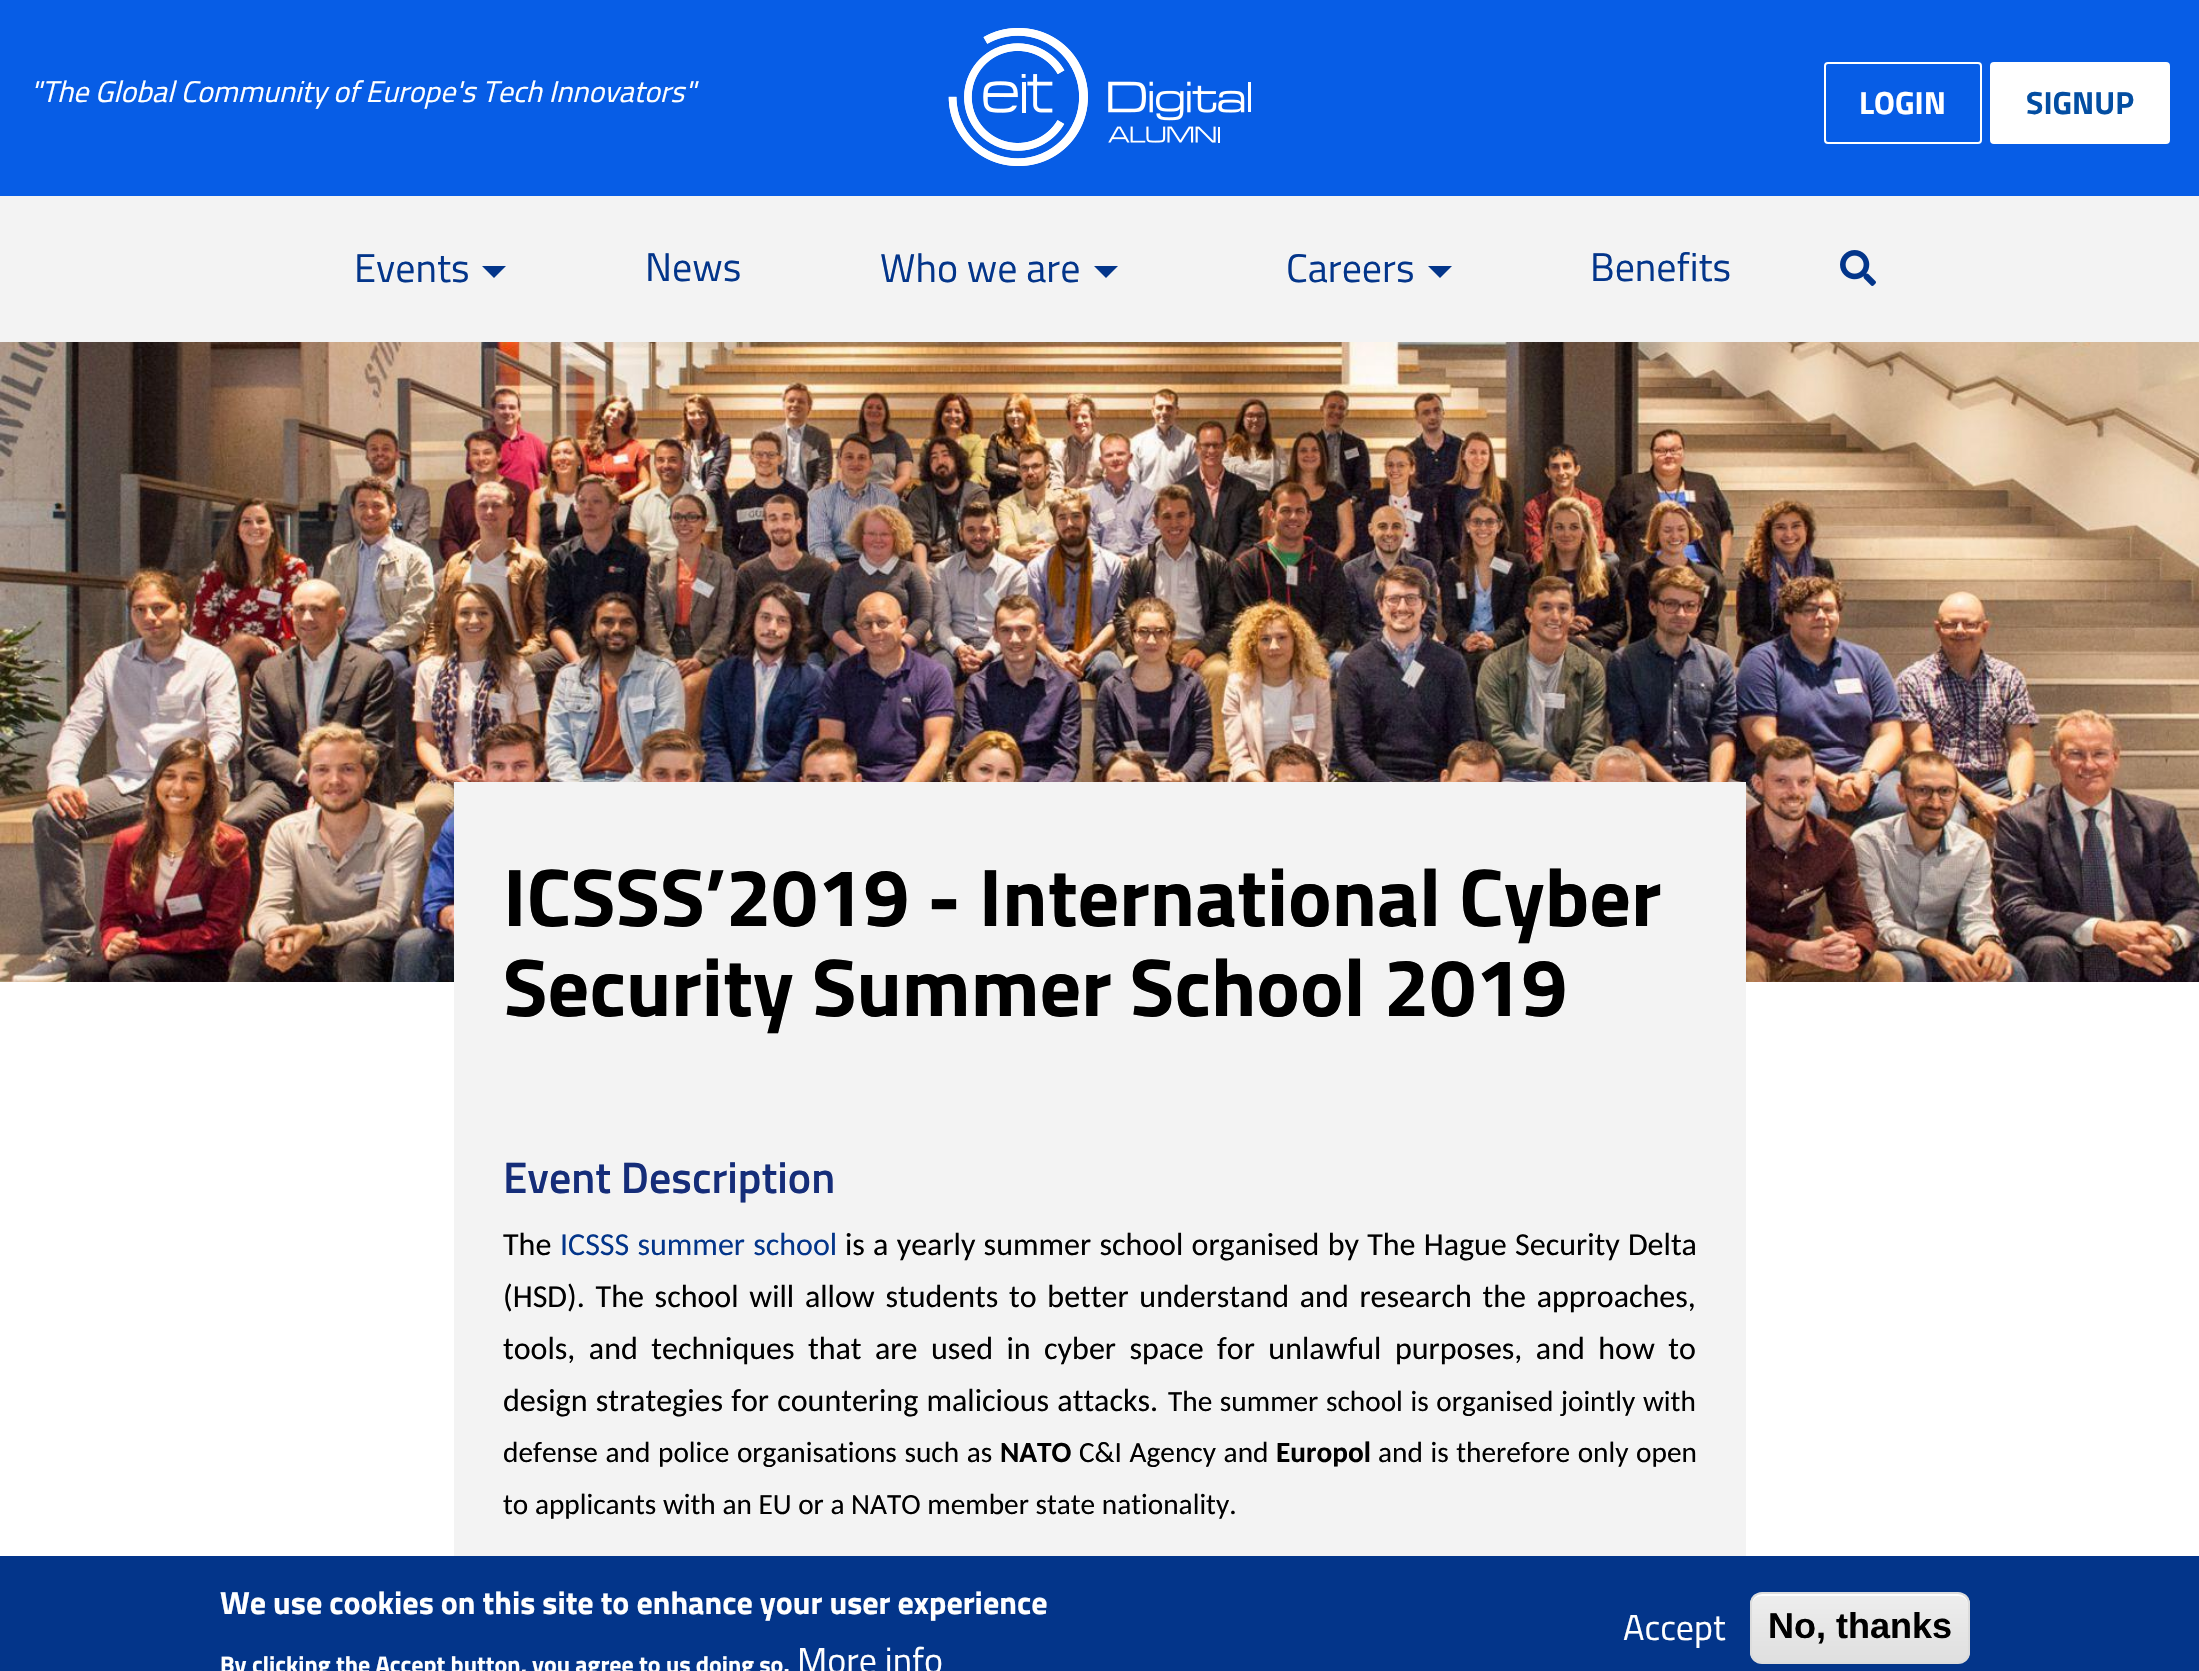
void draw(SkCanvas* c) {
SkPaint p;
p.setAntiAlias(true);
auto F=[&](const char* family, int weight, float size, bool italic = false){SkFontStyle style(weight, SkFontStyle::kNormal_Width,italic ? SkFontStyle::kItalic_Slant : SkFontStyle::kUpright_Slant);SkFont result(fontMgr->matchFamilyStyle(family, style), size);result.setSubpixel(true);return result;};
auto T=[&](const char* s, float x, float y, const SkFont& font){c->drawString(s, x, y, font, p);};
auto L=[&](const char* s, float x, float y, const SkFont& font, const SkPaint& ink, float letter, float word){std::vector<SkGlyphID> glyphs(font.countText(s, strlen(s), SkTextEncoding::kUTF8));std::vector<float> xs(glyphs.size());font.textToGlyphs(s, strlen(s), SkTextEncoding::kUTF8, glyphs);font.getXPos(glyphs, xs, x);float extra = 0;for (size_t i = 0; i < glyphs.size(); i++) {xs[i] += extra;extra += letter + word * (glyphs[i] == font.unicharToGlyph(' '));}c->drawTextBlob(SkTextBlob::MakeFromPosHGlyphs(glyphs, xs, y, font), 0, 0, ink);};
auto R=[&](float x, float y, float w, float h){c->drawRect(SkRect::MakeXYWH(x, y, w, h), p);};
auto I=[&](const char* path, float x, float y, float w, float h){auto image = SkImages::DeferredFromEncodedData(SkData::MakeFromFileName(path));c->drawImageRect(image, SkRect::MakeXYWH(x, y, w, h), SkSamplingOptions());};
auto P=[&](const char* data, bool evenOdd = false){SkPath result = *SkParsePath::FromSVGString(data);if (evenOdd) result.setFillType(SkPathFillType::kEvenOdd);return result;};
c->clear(0xffffffff);
p.setColor(0xff075de6);
R(0,0,2199,196);
auto f1 = F("Titillium Web",400,30,true);
p.setColor(0xffffffff);
T("\"The Global Community of Europe's Tech Innovators\"",30,102,f1);
I("1.png",948,28,303,138);
p.setStroke(true);
p.setStrokeWidth(2);
c->drawRoundRect(SkRect::MakeXYWH(1825,63,156,80),3,3,p);
auto f2 = F("Titillium Web",700,32);
p.setStroke(false);
T("LOGIN",1859,114,f2);
c->drawRoundRect(SkRect::MakeXYWH(1991,63,178,80),3,3,p);
p.setStroke(true);
c->drawRoundRect(SkRect::MakeXYWH(1991,63,178,80),3,3,p);
p.setStroke(false);
p.setColor(0xff034ea2);
T("SIGNUP",2026,114,f2);
p.setColor(0xfff3f3f3);
R(0,196,2199,146);
auto f3 = F("Titillium Web",400,40);
p.setColor(0xff03358a);
T("Events",354,282,f3);
c->drawPath(P("M482 266h24l-12 12z"),p);
T("News",645,281,f3);
T("Who we are",880,282,f3);
c->drawPath(P("M1094 266h24l-12 12z"),p);
T("Careers",1286,282,f3);
c->drawPath(P("M1428 266h24l-12 12z"),p);
T("Benefits",1590,281,f3);
I("2.png",1840,250,36,36);
I("3.png",0,342,2199,640);
p.setColor(0xfff3f3f3);
R(454,782,1292,774);
auto f4 = F("Titillium Web",700,82);
p.setColor(0xff000000);
T("ICSSS’2019 - International Cyber",503,926,f4);
T("Security Summer School 2019",503,1016,f4);
auto f5 = F("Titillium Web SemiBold",600,44);
p.setColor(0xff152d79);
T("Event Description",503,1193,f5);
auto f6 = F("Carlito",400,32);
p.setColor(0xff000000);
T("The",503,1255,f6);
p.setColor(0xff03358a);
L("ICSSS summer school",560,1255,f6,p,0,1);
p.setColor(0xff000000);
L("is a yearly summer school organised by The Hague Security Delta",845,1255,f6,p,0,1);
L("(HSD). The school will allow students to better understand and research the approaches,",503,1307,f6,p,0,3.5);
L("tools, and techniques that are used in cyber space for unlawful purposes, and how to",503,1359,f6,p,0,6.25);
L("design strategies for countering malicious attacks.",503,1411,f6,p,0,1);
auto f7 = F("Carlito",400,29.3);
L("The summer school is organised jointly with",1168,1411,f7,p,0,1);
L("defense and police organisations such as",503,1462,f7,p,0,1);
auto f8 = F("Carlito",700,29.3);
T("NATO",1000,1462,f8);
L("C&I Agency and",1079,1462,f7,p,0,1);
T("Europol",1276,1462,f8);
L("and is therefore only open",1378,1462,f7,p,0,1);
T("to applicants with an EU or a NATO member state nationality.",503,1514,f7);
p.setColor(0xff03358a);
R(0,1556,2199,115);
p.setColor(0xffffffff);
T("We use cookies on this site to enhance your user experience",220,1614,f2);
auto f9 = F("Titillium Web",700,24);
T("By clicking the Accept button, you agree to us doing so.",220,1673,f9);
auto f10 = F("Titillium Web",400,36);
T("More info",797,1673,f10);
T("Accept",1623,1640,f10);
c->save();
c->clipPath(P("M1762 1592h196c6.5 0 12 5.5 12 12v48c0 6.5-5.5 12-12 12h-196c-6.5 0-12-5.5-12-12v-48c0-6.5 5.5-12 12-12z"),true);
{
const SkColor colors[] = {0xffededed,0xffdfdfdf};
const float stops[] = {.05,1};
const SkPoint ends[] = {{1860,1594}, {1860,1662}};
p.setShader(SkGradientShader::MakeLinear(ends, colors, stops, 2, SkTileMode::kClamp));
p.setAlpha(255);
}
R(1750,1594,220,68);
c->restore();
p.setShader(nullptr);
p.setColor(0xffffffff);
c->drawPath(P("M1762 1596h196c6 0 10 4 10 10v-2c0-6-4-10-10-10h-196c-6 0-10 4-10 10v2c0-6 4-10 10-10z"),p);
p.setStroke(true);
p.setColor(0xffdcdcdc);
c->drawRoundRect(SkRect::MakeXYWH(1751,1593,218,70),11,11,p);
auto f11 = F("Liberation Sans",700,36);
p.setStroke(false);
p.setColor(0xff000000);
T("No, thanks",1768,1638,f11);
}
